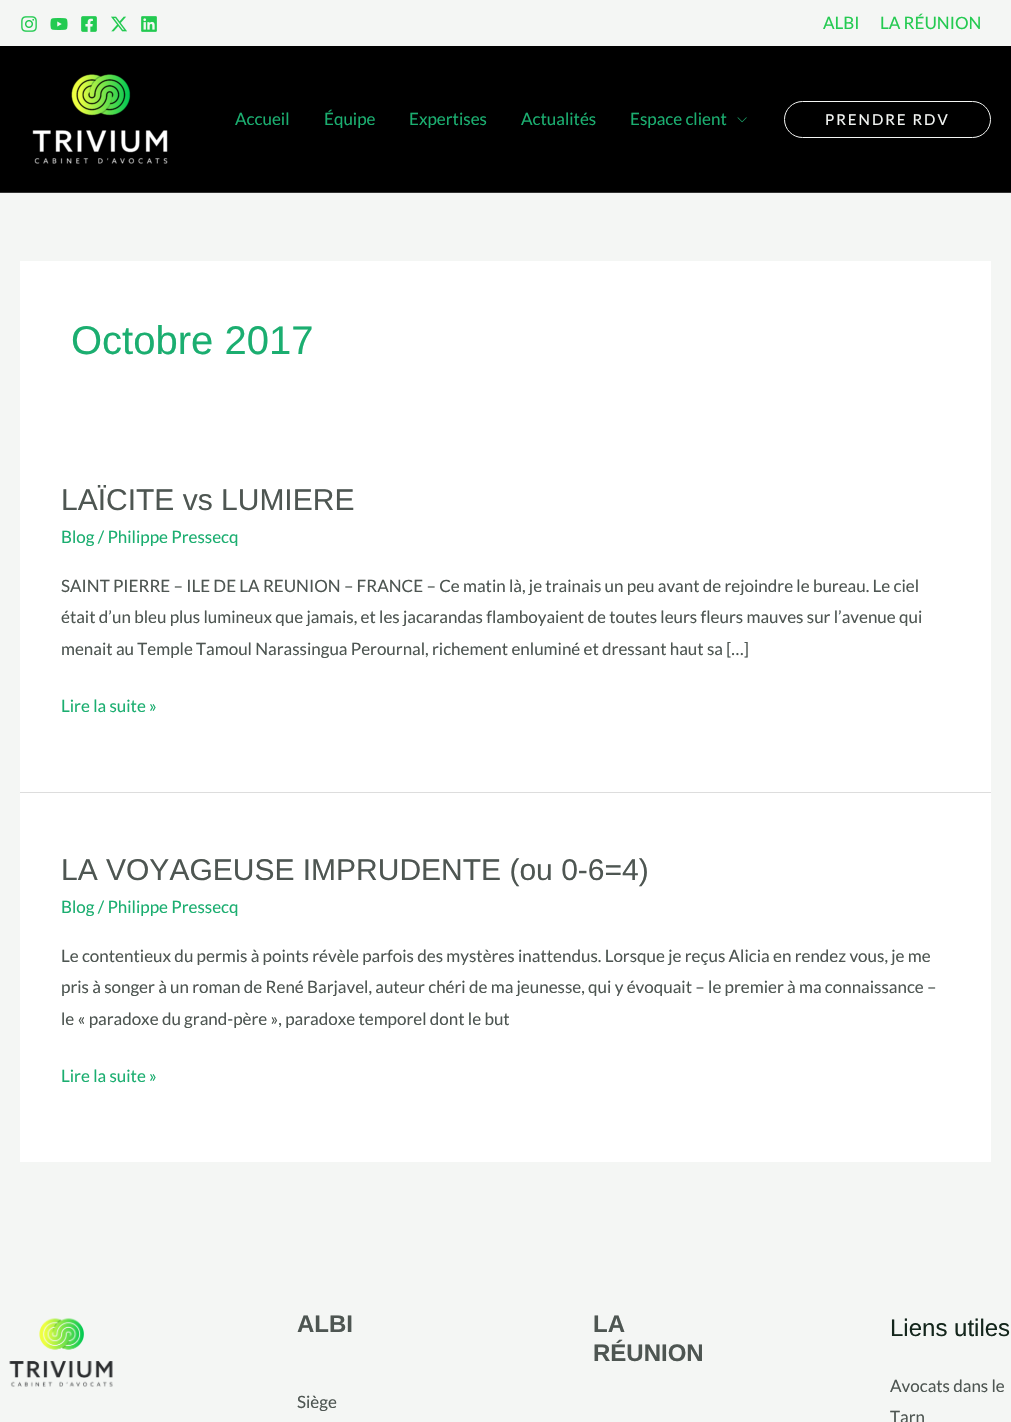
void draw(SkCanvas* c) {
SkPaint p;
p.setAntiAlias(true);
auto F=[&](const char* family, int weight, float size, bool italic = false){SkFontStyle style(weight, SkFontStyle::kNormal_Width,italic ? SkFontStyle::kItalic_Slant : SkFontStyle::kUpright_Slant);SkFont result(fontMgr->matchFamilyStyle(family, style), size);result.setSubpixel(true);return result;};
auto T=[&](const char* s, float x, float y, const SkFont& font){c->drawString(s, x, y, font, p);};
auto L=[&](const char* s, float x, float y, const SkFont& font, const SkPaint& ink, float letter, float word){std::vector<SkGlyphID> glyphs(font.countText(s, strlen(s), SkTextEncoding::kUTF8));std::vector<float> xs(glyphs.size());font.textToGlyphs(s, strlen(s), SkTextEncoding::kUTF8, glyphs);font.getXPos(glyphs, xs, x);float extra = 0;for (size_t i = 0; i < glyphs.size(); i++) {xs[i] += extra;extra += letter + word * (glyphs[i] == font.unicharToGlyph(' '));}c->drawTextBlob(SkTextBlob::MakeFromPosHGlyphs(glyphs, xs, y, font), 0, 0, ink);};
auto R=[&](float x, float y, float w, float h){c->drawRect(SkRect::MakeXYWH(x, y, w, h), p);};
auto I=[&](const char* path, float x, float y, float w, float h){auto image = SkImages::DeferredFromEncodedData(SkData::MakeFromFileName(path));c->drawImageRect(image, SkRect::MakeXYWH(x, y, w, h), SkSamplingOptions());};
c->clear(0xfff4f6f4);
I("1.png",21,16,16,16);
I("2.png",50,18,18,12);
I("3.png",81,16,16,16);
I("4.png",111,16,16,16);
I("5.png",141,16,16,16);
auto f1 = F("Lato",400,17);
p.setColor(0xff24ca51);
T("ALBI",823,29,f1);
T("LA RÉUNION",880,29,f1);
p.setColor(0xff000000);
R(0,46,1011,146);
p.setColor(0xff333333);
R(0,192,1011,1);
I("6.png",32,74,136,90);
p.setColor(0xff1bae70);
T("Accueil",235,125,f1);
T("Équipe",324,125,f1);
T("Expertises",409,125,f1);
T("Actualités",521,125,f1);
T("Espace client",630,125,f1);
I("7.png",737,117,10,6);
p.setStroke(true);
p.setStrokeWidth(1);
p.setColor(0xfff4f6f4);
c->drawRoundRect(SkRect::MakeXYWH(784.5,101.5,206,36),18,18,p);
auto f2 = F("Lato",400,15);
p.setStroke(false);
L("PRENDRE RDV",825,125,f2,p,2,0);
p.setColor(0xffffffff);
R(20,261,971,531);
auto f3 = F("Liberation Sans",400,40);
p.setColor(0xff1bae70);
T("Octobre 2017",71,354,f3);
p.setColor(0xffdddddd);
R(20,792,971,1);
auto f4 = F("Liberation Sans",400,30);
p.setColor(0xff4e5652);
T("LAÏCITE vs LUMIERE",61,510,f4);
p.setColor(0xff1bae70);
T("Blog / Philippe Pressecq",61,543,f1);
p.setColor(0xff4e5652);
T("SAINT PIERRE – ILE DE LA REUNION – FRANCE – Ce matin là, je trainais un peu avant de rejoindre le bureau. Le ciel",61,592,f1);
T("était d’un bleu plus lumineux que jamais, et les jacarandas flamboyaient de toutes leurs fleurs mauves sur l’avenue qui",61,623,f1);
T("menait au Temple Tamoul Narassingua Perournal, richement enluminé et dressant haut sa […]",61,655,f1);
p.setColor(0xff1bae70);
T("Lire la suite »",61,712,f1);
p.setColor(0xffffffff);
R(20,793,971,369);
p.setColor(0xff4e5652);
T("LA VOYAGEUSE IMPRUDENTE (ou 0-6=4)",61,880,f4);
p.setColor(0xff1bae70);
T("Blog / Philippe Pressecq",61,913,f1);
p.setColor(0xff4e5652);
T("Le contentieux du permis à points révèle parfois des mystères inattendus. Lorsque je reçus Alicia en rendez vous, je me",61,962,f1);
T("pris à songer à un roman de René Barjavel, auteur chéri de ma jeunesse, qui y évoquait – le premier à ma connaissance –",61,993,f1);
T("le « paradoxe du grand-père », paradoxe temporel dont le but",61,1025,f1);
p.setColor(0xff1bae70);
T("Lire la suite »",61,1082,f1);
I("8.png",9,1318,104,69);
auto f5 = F("Liberation Sans",700,24);
p.setColor(0xff4e5652);
T("ALBI",297,1332,f5);
T("Siège",297,1408,f1);
T("LA",593,1332,f5);
T("RÉUNION",593,1361,f5);
auto f6 = F("Liberation Sans",400,24);
p.setColor(0xff14261c);
T("Liens utiles",890,1336,f6);
p.setColor(0xff4e5652);
T("Avocats dans le",890,1392,f1);
T("Tarn",890,1423,f1);
}
